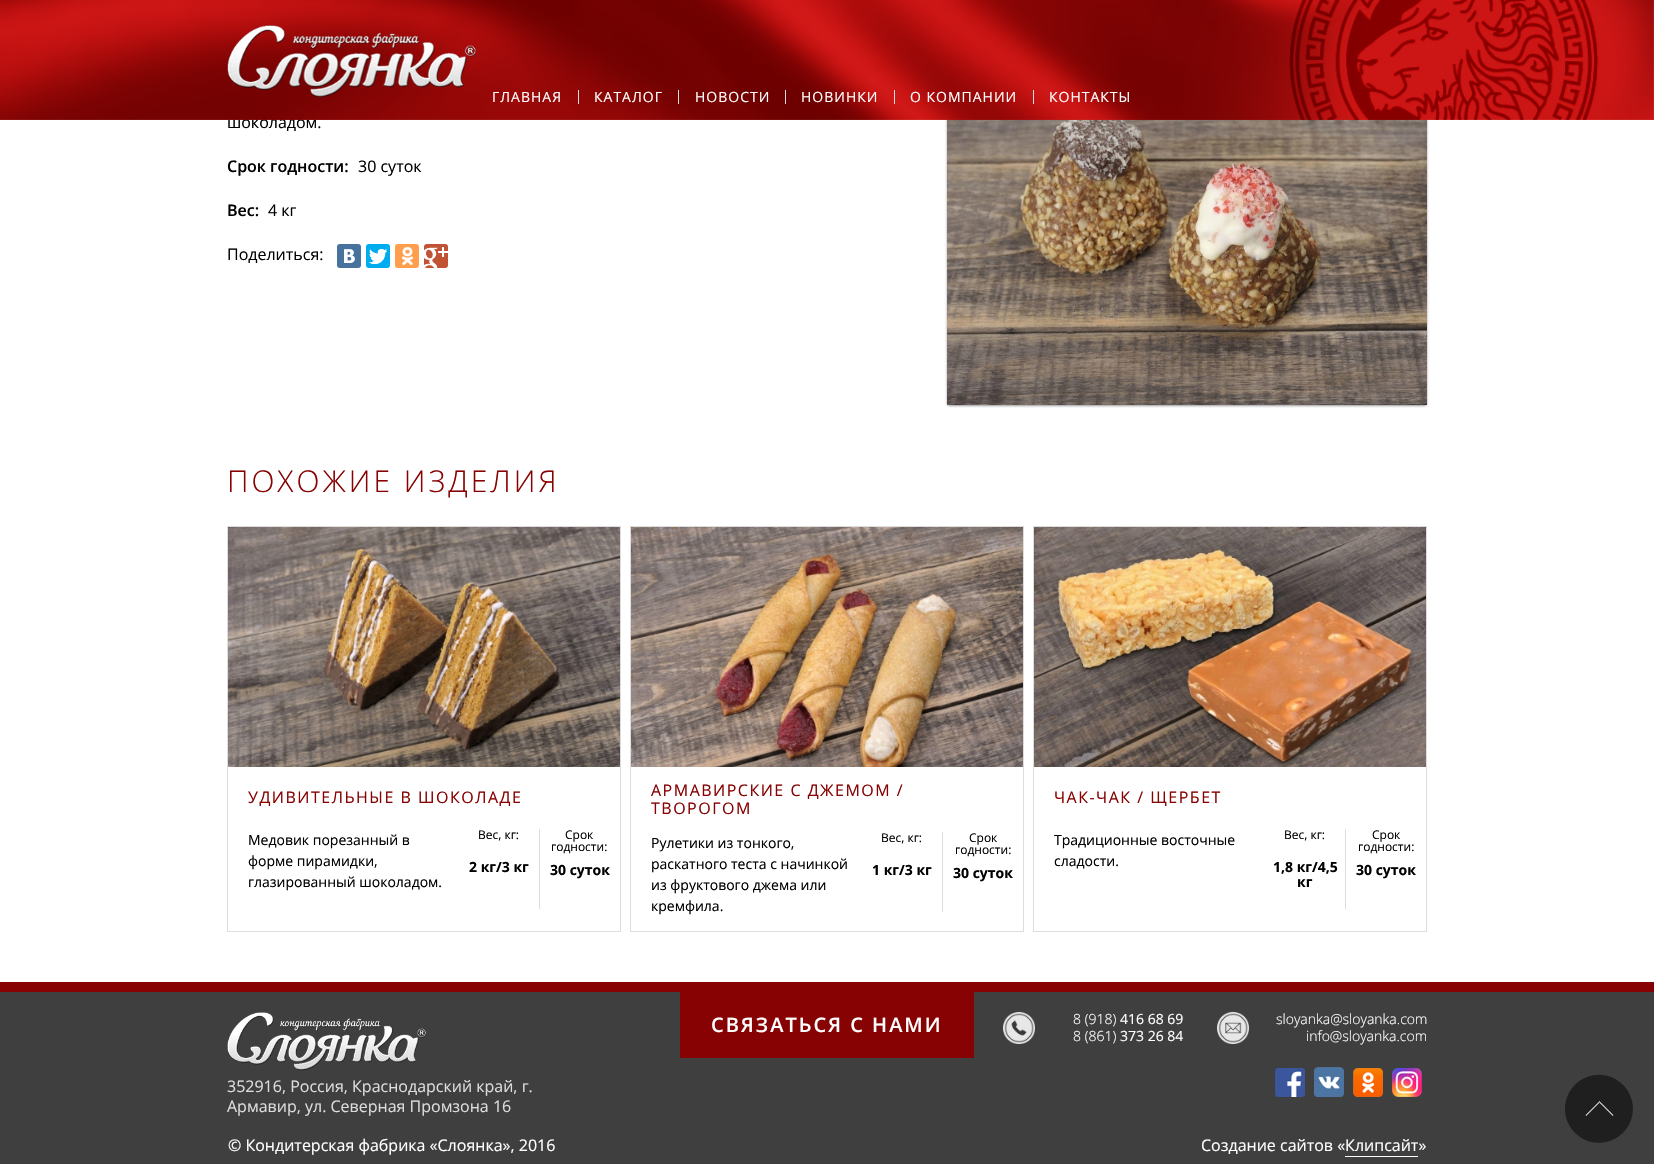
void draw(SkCanvas* c) {
SkPaint p;
p.setAntiAlias(true);
auto F=[&](const char* family, int weight, float size, bool italic = false){SkFontStyle style(weight, SkFontStyle::kNormal_Width,italic ? SkFontStyle::kItalic_Slant : SkFontStyle::kUpright_Slant);SkFont result(fontMgr->matchFamilyStyle(family, style), size);result.setSubpixel(true);return result;};
auto T=[&](const char* s, float x, float y, const SkFont& font){c->drawString(s, x, y, font, p);};
auto L=[&](const char* s, float x, float y, const SkFont& font, const SkPaint& ink, float letter, float word){std::vector<SkGlyphID> glyphs(font.countText(s, strlen(s), SkTextEncoding::kUTF8));std::vector<float> xs(glyphs.size());font.textToGlyphs(s, strlen(s), SkTextEncoding::kUTF8, glyphs);font.getXPos(glyphs, xs, x);float extra = 0;for (size_t i = 0; i < glyphs.size(); i++) {xs[i] += extra;extra += letter + word * (glyphs[i] == font.unicharToGlyph(' '));}c->drawTextBlob(SkTextBlob::MakeFromPosHGlyphs(glyphs, xs, y, font), 0, 0, ink);};
auto R=[&](float x, float y, float w, float h){c->drawRect(SkRect::MakeXYWH(x, y, w, h), p);};
auto Q=[&](float x, float y, float w, float h, float radius){c->drawRoundRect(SkRect::MakeXYWH(x, y, w, h), radius, radius, p);};
auto I=[&](const char* path, float x, float y, float w, float h){auto image = SkImages::DeferredFromEncodedData(SkData::MakeFromFileName(path));c->drawImageRect(image, SkRect::MakeXYWH(x, y, w, h), SkSamplingOptions());};
c->clear(0xffffffff);
auto f1 = F("Open Sans",400,16);
p.setColor(0xff000000);
T("шоколадом.",227,128,f1);
p.setColor(0xff444444);
p.setMaskFilter(SkMaskFilter::MakeBlur(kNormal_SkBlurStyle, 1.5));
c->drawRect(SkRect::MakeXYWH(948,88,478,317),p);
p.setMaskFilter(nullptr);
I("3.png",947,119,480,286);
I("2.png",0,0,1654,120);
I("1.png",227,25,250,73);
p.setColor(0xffdddddd);
R(578,90,1,14);
auto f2 = F("Open Sans",400,14);
p.setColor(0xffffffff);
L("ГЛАВНАЯ",492,102,f2,p,1,0);
p.setColor(0xffdddddd);
R(678,90,1,14);
p.setColor(0xffffffff);
L("КАТАЛОГ",594,102,f2,p,1,0);
p.setColor(0xffdddddd);
R(785,90,1,14);
p.setColor(0xffffffff);
L("НОВОСТИ",695,102,f2,p,1,0);
p.setColor(0xffdddddd);
R(894,90,1,14);
p.setColor(0xffffffff);
L("НОВИНКИ",801,102,f2,p,1,0);
p.setColor(0xffdddddd);
R(1033,90,1,14);
p.setColor(0xffffffff);
L("О КОМПАНИИ",910,102,f2,p,1,0);
L("КОНТАКТЫ",1049,102,f2,p,1,0);
auto f3 = F("Open Sans",600,16);
p.setColor(0xff000000);
T("Срок годности:",227,172,f3);
T("30 суток",358,172,f1);
T("Вес:",227,216,f3);
T("4 кг",268,216,f1);
T("Поделиться:",227,260,f1);
p.setColor(0xff48729e);
Q(337,244,24,24,3);
I("4.png",344,249,11,14);
p.setColor(0xff00aced);
Q(366,244,24,24,3);
I("5.png",369,249,18,15);
p.setColor(0xffff9f4d);
Q(395,244,24,24,3);
I("6.png",402,247,11,18);
p.setColor(0xffc25234);
Q(424,244,24,24,3);
I("7.png",424,247,24,21);
auto f4 = F("Open Sans",300,30);
p.setColor(0xff870202);
L("ПОХОЖИЕ ИЗДЕЛИЯ",227,492,f4,p,3,0);
p.setStroke(true);
p.setStrokeWidth(1);
p.setColor(0xffdddddd);
c->drawRect(SkRect::MakeXYWH(227.5,526.5,393,405),p);
I("8.png",228,527,392,240);
p.setStroke(false);
p.setColor(0xff870202);
L("УДИВИТЕЛЬНЫЕ В ШОКОЛАДЕ",248,803,f1,p,1.5,0);
p.setColor(0xff000000);
T("Медовик порезанный в",248,845,f2);
T("форме пирамидки,",248,866,f2);
T("глазированный шоколадом.",248,887,f2);
p.setColor(0xffdddddd);
R(539,829,1,80);
auto f5 = F("Open Sans",400,12);
p.setColor(0xff000000);
T("Вес, кг:",478,839,f5);
auto f6 = F("Open Sans",700,14);
T("2 кг/3 кг",469,872,f6);
T("Срок",565,839,f5);
T("годности:",551,851,f5);
T("30 суток",550,875,f6);
p.setStroke(true);
p.setColor(0xffdddddd);
c->drawRect(SkRect::MakeXYWH(630.5,526.5,393,405),p);
I("9.png",631,527,392,240);
p.setStroke(false);
p.setColor(0xff870202);
L("АРМАВИРСКИЕ С ДЖЕМОМ /",651,796,f1,p,1.5,0);
L("ТВОРОГОМ",651,814,f1,p,1.5,0);
p.setColor(0xff000000);
T("Рулетики из тонкого,",651,848,f2);
T("раскатного теста с начинкой",651,869,f2);
T("из фруктового джема или",651,890,f2);
T("кремфила.",651,911,f2);
p.setColor(0xffdddddd);
R(942,832,1,80);
p.setColor(0xff000000);
T("Вес, кг:",881,842,f5);
T("1 кг/3 кг",872,875,f6);
T("Срок",969,842,f5);
T("годности:",955,854,f5);
T("30 суток",953,878,f6);
p.setStroke(true);
p.setColor(0xffdddddd);
c->drawRect(SkRect::MakeXYWH(1033.5,526.5,393,405),p);
I("10.png",1034,527,392,240);
p.setStroke(false);
p.setColor(0xff870202);
L("ЧАК-ЧАК / ЩЕРБЕТ",1054,803,f1,p,1.5,0);
p.setColor(0xff000000);
T("Традиционные восточные",1054,845,f2);
T("сладости.",1054,866,f2);
p.setColor(0xffdddddd);
R(1345,829,1,80);
p.setColor(0xff000000);
T("Вес, кг:",1284,839,f5);
T("1,8 кг/4,5",1273,872,f6);
T("кг",1297,887,f6);
T("Срок",1372,839,f5);
T("годности:",1358,851,f5);
T("30 суток",1356,875,f6);
p.setColor(0xff3f3f3f);
R(0,992,1654,172);
p.setColor(0xff870202);
R(0,982,1654,10);
R(680,992,294,66);
auto f7 = F("Open Sans",600,20);
p.setColor(0xffffffff);
L("СВЯЗАТЬСЯ С НАМИ",711,1032,f7,p,2,0);
I("11.png",1003,1012,32,32);
auto f8 = F("Open Sans",300,14);
T("8 (918)",1073,1024,f8);
T("416 68 69",1120,1024,f2);
T("8 (861)",1073,1041,f8);
T("373 26 84",1120,1041,f2);
I("12.png",1217,1012,32,32);
T("sloyanka@sloyanka.com",1276,1024,f8);
T("info@sloyanka.com",1306,1041,f8);
I("13.png",1275,1068,30,29);
I("14.png",1314,1067,30,30);
I("15.png",1353,1068,30,29);
I("16.png",1392,1068,30,29);
I("17.png",227,1012,200,59);
p.setColor(0xffdddddd);
T("352916, Россия, Краснодарский край, г.",227,1092,f1);
T("Армавир, ул. Северная Промзона 16",227,1112,f1);
p.setColor(0xffffffff);
T("© Кондитерская фабрика «Слоянка», 2016",228,1151,f1);
T("Создание сайтов «Клипсайт»",1201,1151,f1);
R(1345,1156,73,1);
I("18.png",1565,1074,68,69);
}
